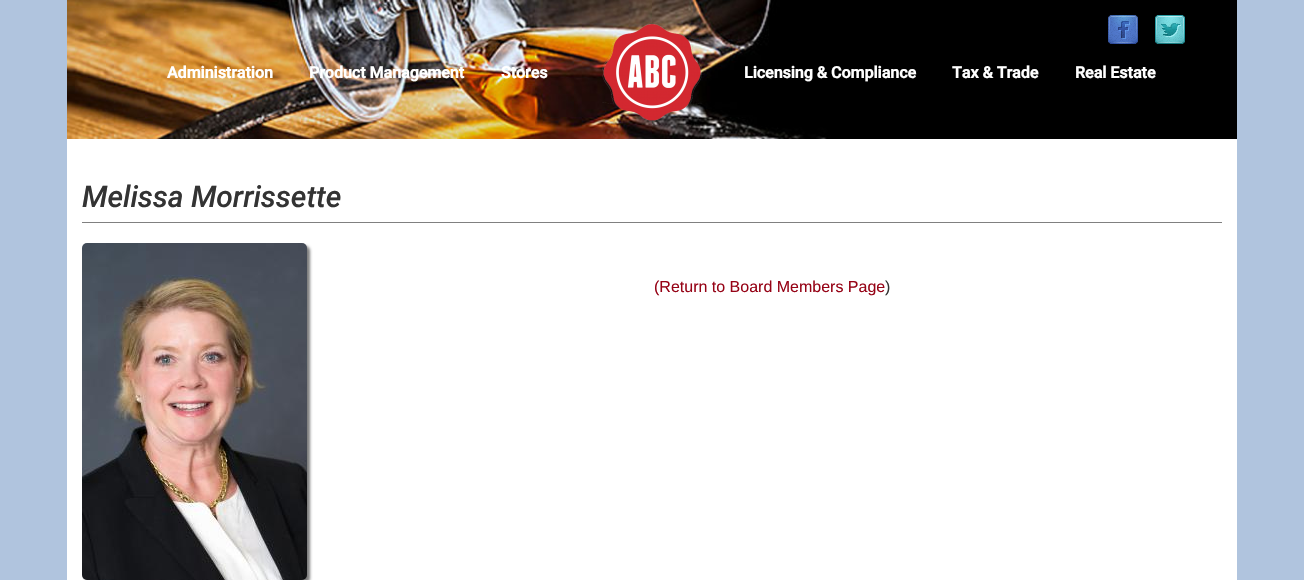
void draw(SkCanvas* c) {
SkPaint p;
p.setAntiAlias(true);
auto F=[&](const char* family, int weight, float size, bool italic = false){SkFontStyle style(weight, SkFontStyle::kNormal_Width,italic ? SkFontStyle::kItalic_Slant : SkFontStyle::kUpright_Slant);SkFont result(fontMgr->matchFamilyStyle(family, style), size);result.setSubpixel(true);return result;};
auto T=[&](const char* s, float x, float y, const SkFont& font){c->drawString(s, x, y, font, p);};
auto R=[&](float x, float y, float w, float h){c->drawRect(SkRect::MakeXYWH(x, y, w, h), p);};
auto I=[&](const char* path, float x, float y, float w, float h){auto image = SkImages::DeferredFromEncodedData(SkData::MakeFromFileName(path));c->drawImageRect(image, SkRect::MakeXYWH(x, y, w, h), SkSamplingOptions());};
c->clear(0xffb0c4de);
I("1.png",67,0,1170,139);
I("2.png",602,24,100,97);
I("3.png",1108,15,30,29);
I("4.png",1155,15,30,29);
auto f1 = F("Roboto",700,16);
p.setColor(0xffffffff);
T("Administration",167,78,f1);
T("Product Management",309,78,f1);
T("Stores",501,78,f1);
T("Licensing & Compliance",744,78,f1);
T("Tax & Trade",952,78,f1);
T("Real Estate",1075,78,f1);
R(67,139,1170,441);
p.setColor(0xff808080);
R(82,222,1140,1);
auto f2 = F("Roboto",500,30,true);
p.setColor(0xff333333);
T("Melissa Morrissette",82,207,f2);
p.setColor(0xff7c7c7c);
p.setMaskFilter(SkMaskFilter::MakeBlur(kNormal_SkBlurStyle, 1.5));
c->drawRoundRect(SkRect::MakeXYWH(85,246,225,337),5,5,p);
p.setMaskFilter(nullptr);
I("5.png",82,243,225,337);
auto f3 = F("Liberation Sans",400,16);
p.setColor(0xff960316);
T("(Return to Board Members Page",654,292,f3);
p.setColor(0xff333333);
T(")",885,292,f3);
}
